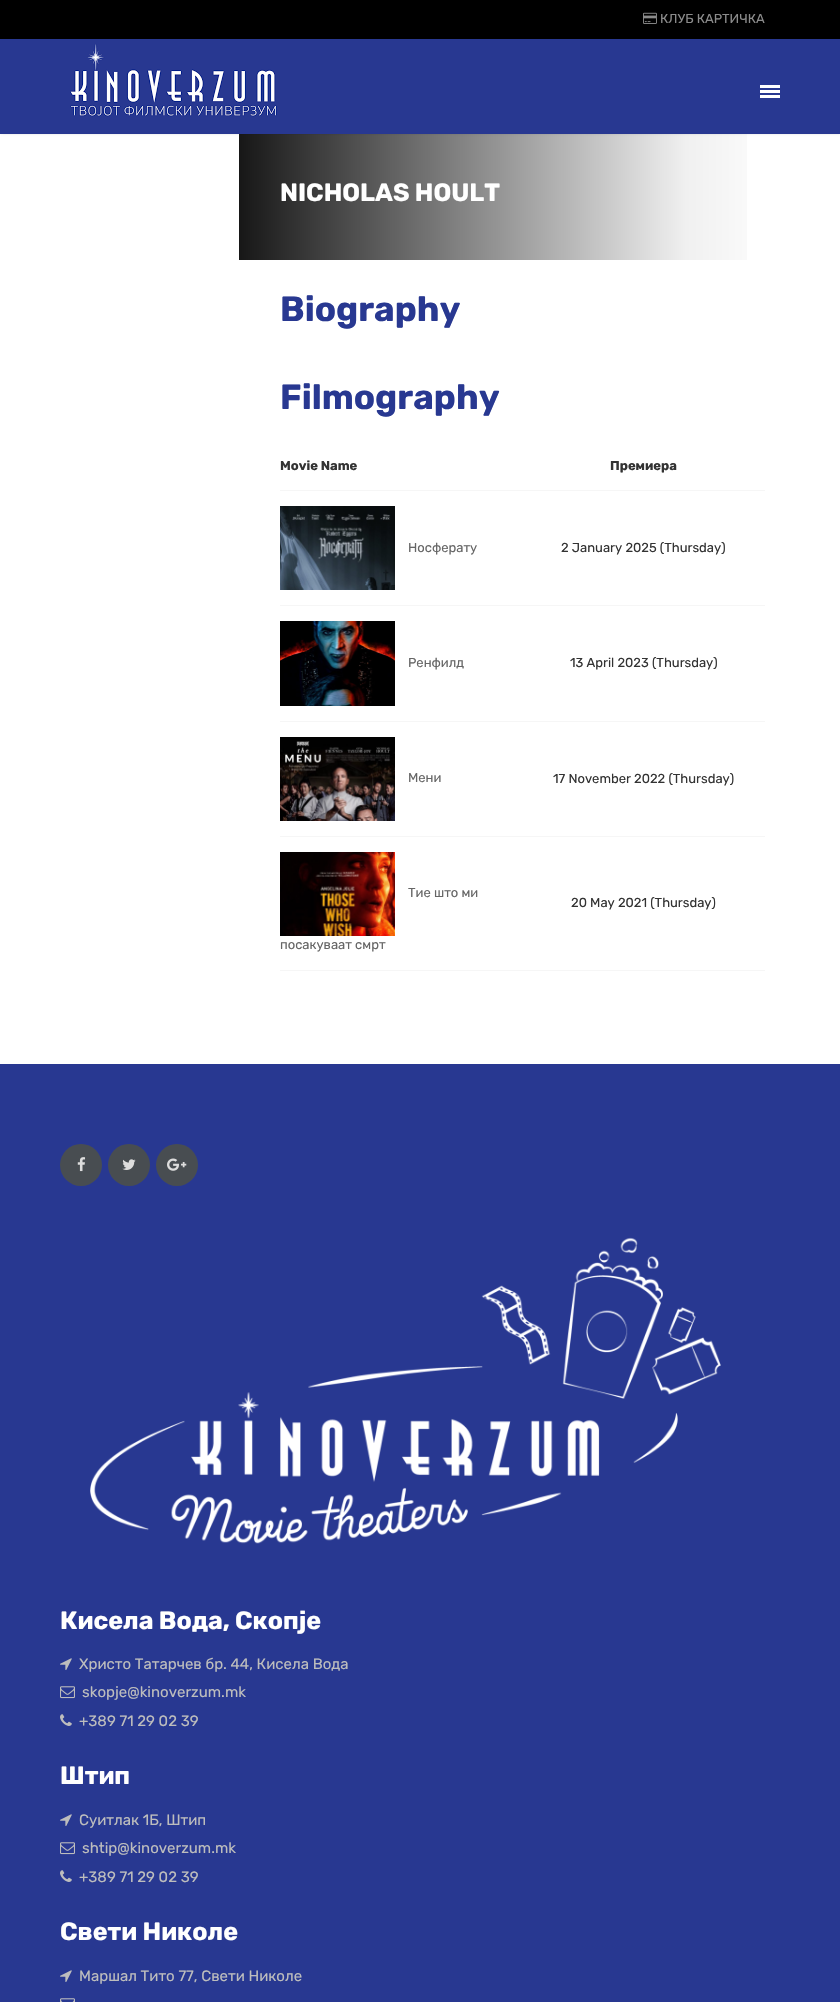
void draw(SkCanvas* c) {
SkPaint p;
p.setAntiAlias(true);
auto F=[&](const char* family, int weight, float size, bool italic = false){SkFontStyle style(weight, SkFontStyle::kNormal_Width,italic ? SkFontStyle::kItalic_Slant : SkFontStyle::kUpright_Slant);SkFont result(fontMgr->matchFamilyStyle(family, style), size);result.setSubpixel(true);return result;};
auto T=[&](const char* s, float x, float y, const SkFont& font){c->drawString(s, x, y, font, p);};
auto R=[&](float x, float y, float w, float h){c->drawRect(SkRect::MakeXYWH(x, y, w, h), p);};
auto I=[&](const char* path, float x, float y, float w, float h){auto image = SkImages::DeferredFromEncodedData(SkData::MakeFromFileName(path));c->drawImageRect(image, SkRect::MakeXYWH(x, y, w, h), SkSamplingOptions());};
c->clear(0xffffffff);
p.setColor(0xff000000);
R(0,0,840,39);
I("1.png",643,12,14,12);
auto f1 = F("Rubik",400,13);
p.setColor(0xff8b8b8b);
T("КЛУБ КАРТИЧКА",660,23,f1);
p.setColor(0xff000000);
p.setMaskFilter(SkMaskFilter::MakeBlur(kNormal_SkBlurStyle, 2));
c->drawRect(SkRect::MakeXYWH(1,36,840,95),p);
p.setMaskFilter(nullptr);
p.setColor(0xff283891);
R(0,39,840,95);
I("2.png",70,44,207,73);
p.setColor(0xffffffff);
R(760,90,20,3);
R(760,85,20,3);
R(760,95,20,3);
{
const SkColor colors[] = {0xe8000000,0x0f000000,0x03000000};
const float stops[] = {0,.85,1};
const SkPoint ends[] = {{239,197}, {765,197}};
p.setShader(SkGradientShader::MakeLinear(ends, colors, stops, 3, SkTileMode::kClamp));
p.setAlpha(255);
}
R(239,134,508,126);
auto f2 = F("Rubik",700,25);
p.setShader(nullptr);
p.setColor(0xffffffff);
T("NICHOLAS HOULT",280,201,f2);
auto f3 = F("Rubik",700,35);
p.setColor(0xff283891);
T("Biography",280,321,f3);
T("Filmography",280,409,f3);
p.setColor(0xfff6f6f6);
R(280,490,485,1);
auto f4 = F("Rubik",700,13);
p.setColor(0xff333333);
T("Movie Name",280,470,f4);
T("Премиера",610,470,f4);
p.setColor(0xfff6f6f6);
R(280,605,485,1);
I("3.png",280,506,115,84);
p.setColor(0xff666666);
T("Носферату",408,552,f1);
p.setColor(0xff333333);
T("2 January 2025 (Thursday)",561,552,f1);
p.setColor(0xfff6f6f6);
R(280,721,485,1);
I("4.png",280,621,115,85);
p.setColor(0xff666666);
T("Ренфилд",408,667,f1);
p.setColor(0xff333333);
T("13 April 2023 (Thursday)",570,667,f1);
p.setColor(0xfff6f6f6);
R(280,836,485,1);
I("5.png",280,737,115,84);
p.setColor(0xff666666);
T("Мени",408,782,f1);
p.setColor(0xff333333);
T("17 November 2022 (Thursday)",553,783,f1);
p.setColor(0xfff6f6f6);
R(280,970,485,1);
I("6.png",280,852,115,84);
p.setColor(0xff666666);
T("Тие што ми",408,897,f1);
T("посакуваат смрт",280,949,f1);
p.setColor(0xff333333);
T("20 May 2021 (Thursday)",571,907,f1);
p.setColor(0xff283891);
R(0,1064,840,938);
p.setColor(0xff484d51);
c->drawCircle(81,1165,21,p);
I("7.png",77,1157,9,15);
c->drawCircle(129,1165,21,p);
I("8.png",122,1159,14,11);
c->drawCircle(177,1165,21,p);
I("9.png",167,1158,20,13);
I("10.png",90,1237,631,307);
p.setColor(0xffffffff);
T("Кисела Вода, Скопје",60,1629,f2);
I("11.png",60,1658,12,12);
auto f5 = F("Rubik",400,15);
p.setColor(0xffbdbdbd);
T("Христо Татарчев бр. 44, Кисела Вода",79,1669,f5);
I("12.png",60,1686,15,13);
T("skopje@kinoverzum.mk",82,1697,f5);
I("13.png",60,1714,12,12);
T("+389 71 29 02 39",79,1726,f5);
p.setColor(0xffffffff);
T("Штип",60,1784,f2);
I("11.png",60,1814,12,12);
p.setColor(0xffbdbdbd);
T("Суитлак 1Б, Штип",79,1825,f5);
I("12.png",60,1842,15,13);
T("shtip@kinoverzum.mk",82,1853,f5);
I("13.png",60,1870,12,12);
T("+389 71 29 02 39",79,1882,f5);
p.setColor(0xffffffff);
T("Свети Николе",60,1940,f2);
I("11.png",60,1970,12,12);
p.setColor(0xffbdbdbd);
T("Маршал Тито 77, Свети Николе",79,1981,f5);
I("14.png",60,1998,15,4);
}
